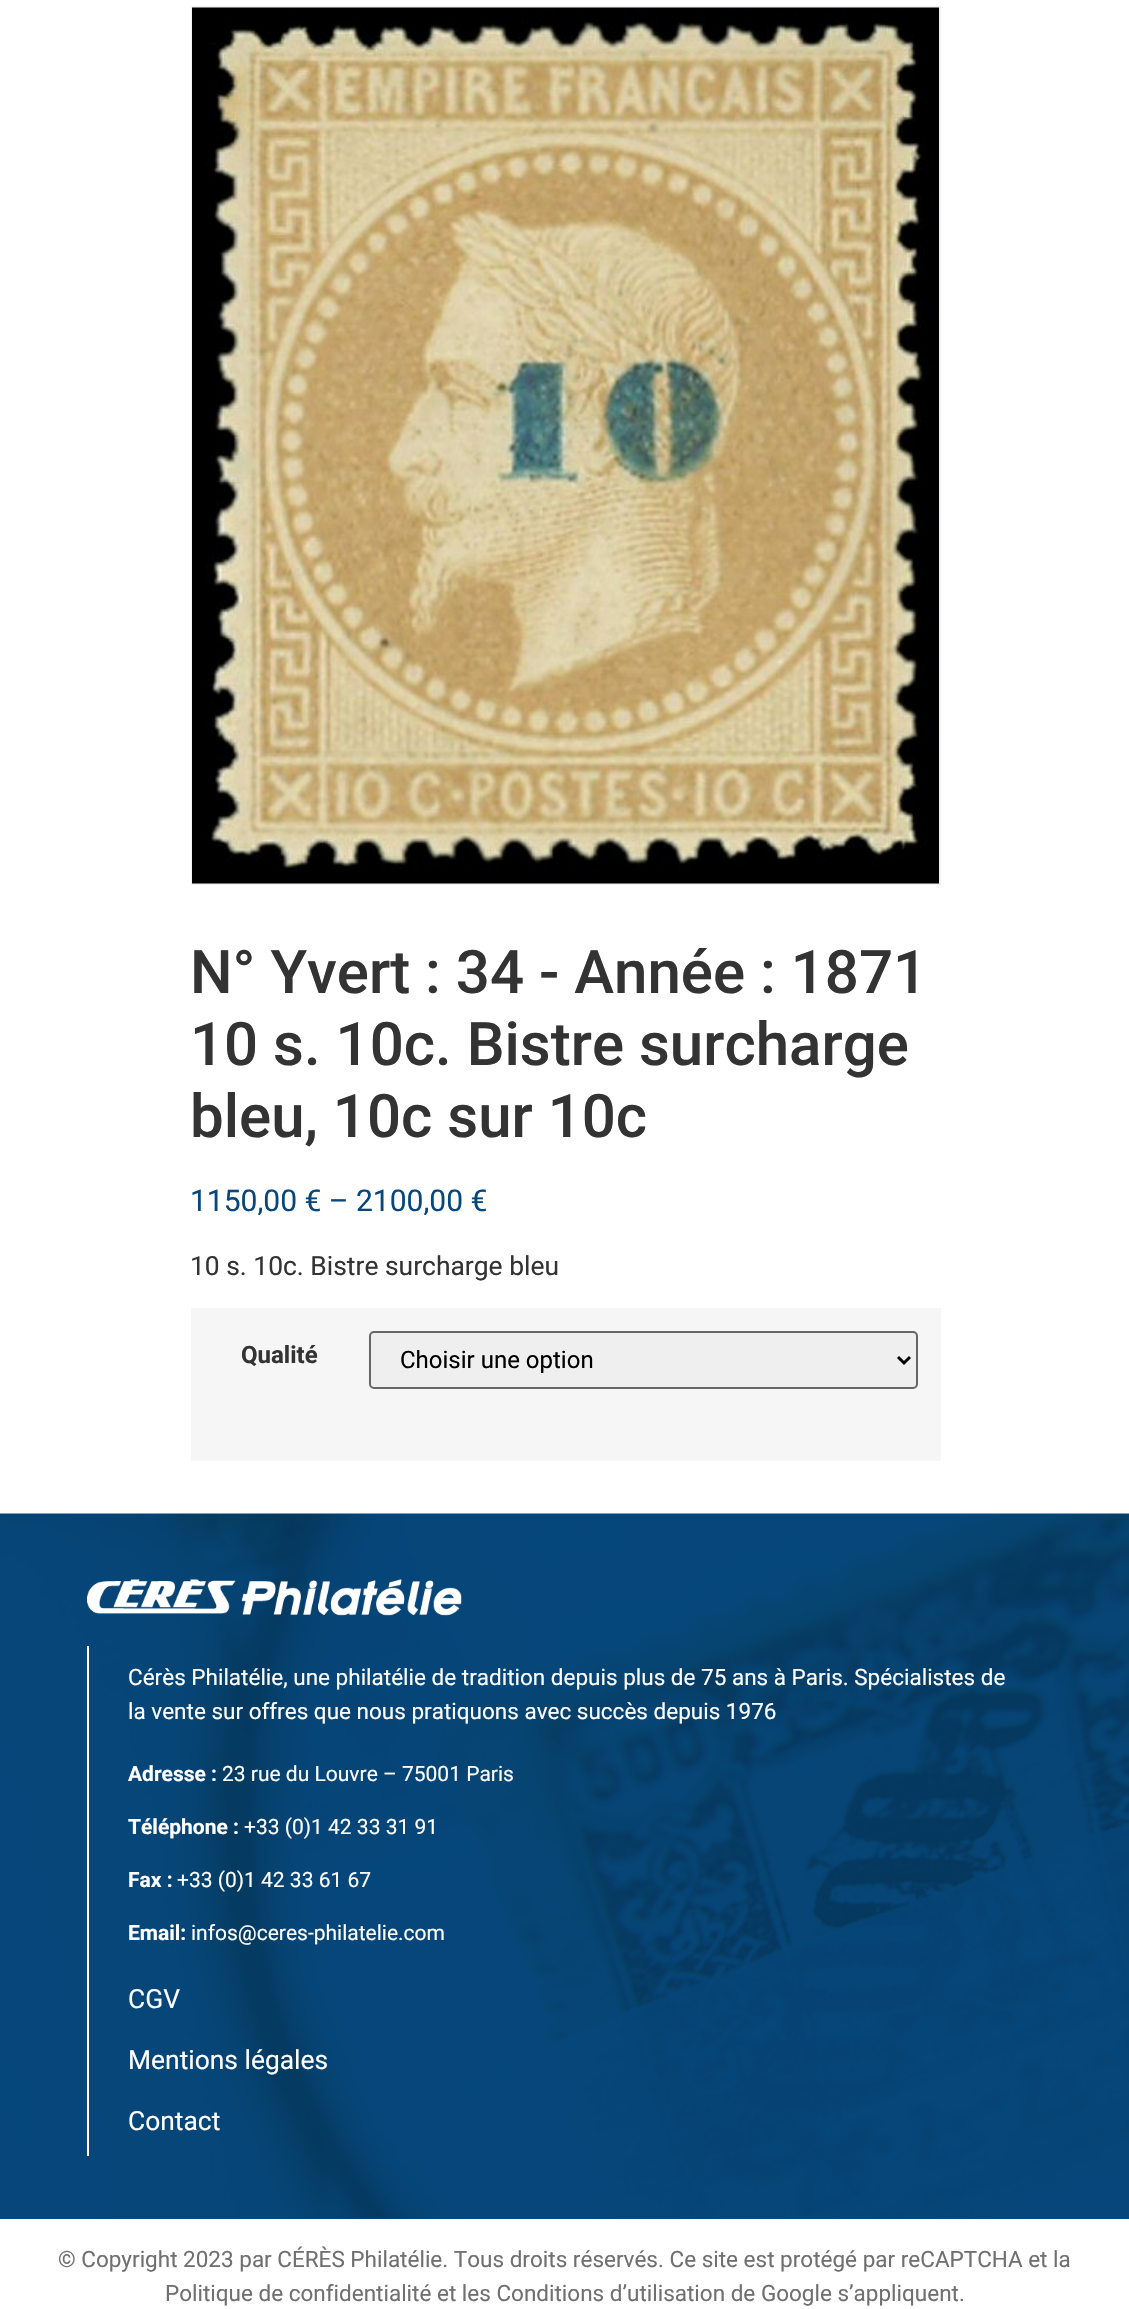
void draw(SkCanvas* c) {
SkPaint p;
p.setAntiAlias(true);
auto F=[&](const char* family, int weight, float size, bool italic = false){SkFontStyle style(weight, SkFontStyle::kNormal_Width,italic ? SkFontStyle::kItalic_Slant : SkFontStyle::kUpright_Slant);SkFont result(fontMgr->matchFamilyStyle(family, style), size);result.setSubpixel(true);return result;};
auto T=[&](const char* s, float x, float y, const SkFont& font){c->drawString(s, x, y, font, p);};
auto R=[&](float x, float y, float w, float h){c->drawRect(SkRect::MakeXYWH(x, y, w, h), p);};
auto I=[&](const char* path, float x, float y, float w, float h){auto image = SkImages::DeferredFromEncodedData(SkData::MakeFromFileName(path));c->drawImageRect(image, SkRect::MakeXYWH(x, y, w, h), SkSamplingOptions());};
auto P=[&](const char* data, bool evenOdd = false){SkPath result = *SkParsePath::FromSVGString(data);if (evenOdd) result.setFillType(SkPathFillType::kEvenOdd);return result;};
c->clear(0xffffffff);
p.setStroke(true);
p.setStrokeWidth(2);
p.setColor(0xfff2f2f2);
c->drawRect(SkRect::MakeXYWH(192,7,748,877),p);
I("1.png",192,7,747,877);
auto f1 = F("Roboto",500,60);
p.setStroke(false);
p.setColor(0xff333333);
T("N° Yvert : 34 - Année : 1871",190,993,f1);
T("10 s. 10c. Bistre surcharge",190,1065,f1);
T("bleu, 10c sur 10c",190,1137,f1);
auto f2 = F("Roboto",400,30);
p.setColor(0xff06487e);
T("1150,00 € – 2100,00 €",190,1211,f2);
auto f3 = F("Roboto",400,26.4);
p.setColor(0xff333333);
T("10 s. 10c. Bistre surcharge bleu",190,1275,f3);
p.setColor(0xfff6f6f6);
R(191,1308,750,153);
auto f4 = F("Roboto",700,24);
p.setColor(0xff333333);
T("Qualité",241,1363,f4);
p.setColor(0xffefefef);
c->drawRoundRect(SkRect::MakeXYWH(370,1332,547,56),4,4,p);
p.setStroke(true);
p.setColor(0xff666666);
c->drawRoundRect(SkRect::MakeXYWH(370,1332,547,56),4,4,p);
p.setStrokeWidth(3);
p.setColor(0xff000000);
c->drawPath(P("M898 1357l6 6l6-6"),p);
auto f5 = F("Roboto",400,24);
p.setStroke(false);
T("Choisir une option",400,1368,f5);
p.setColor(0xff06487e);
R(0,2218,1129,1);
I("2.png",0,1513,1129,706);
I("3.png",87,1579,375,37);
p.setColor(0xffffffff);
R(87,1646,2,510);
auto f6 = F("Roboto",400,22.5);
T("Cérès Philatélie, une philatélie de tradition depuis plus de 75 ans à Paris. Spécialistes de",128,1685,f6);
T("la vente sur offres que nous pratiquons avec succès depuis 1976",128,1719,f6);
auto f7 = F("Roboto",700,21);
T("Adresse :",128,1781,f7);
auto f8 = F("Roboto",400,21);
T("23 rue du Louvre – 75001 Paris",222,1781,f8);
T("Téléphone :",128,1834,f7);
T("+33 (0)1 42 33 31 91",244,1834,f8);
T("Fax :",128,1887,f7);
T("+33 (0)1 42 33 61 67",177,1887,f8);
T("Email:",128,1940,f7);
T("infos@ceres-philatelie.com",191,1940,f8);
T("CGV",128,2008,f3);
T("Mentions légales",128,2069,f3);
T("Contact",128,2130,f3);
p.setColor(0xff707070);
T("© Copyright 2023 par CÉRÈS Philatélie. Tous droits réservés. Ce site est protégé par reCAPTCHA et la",58,2267,f6);
T("Politique de confidentialité et les Conditions d’utilisation de Google s’appliquent.",165,2301,f6);
}
